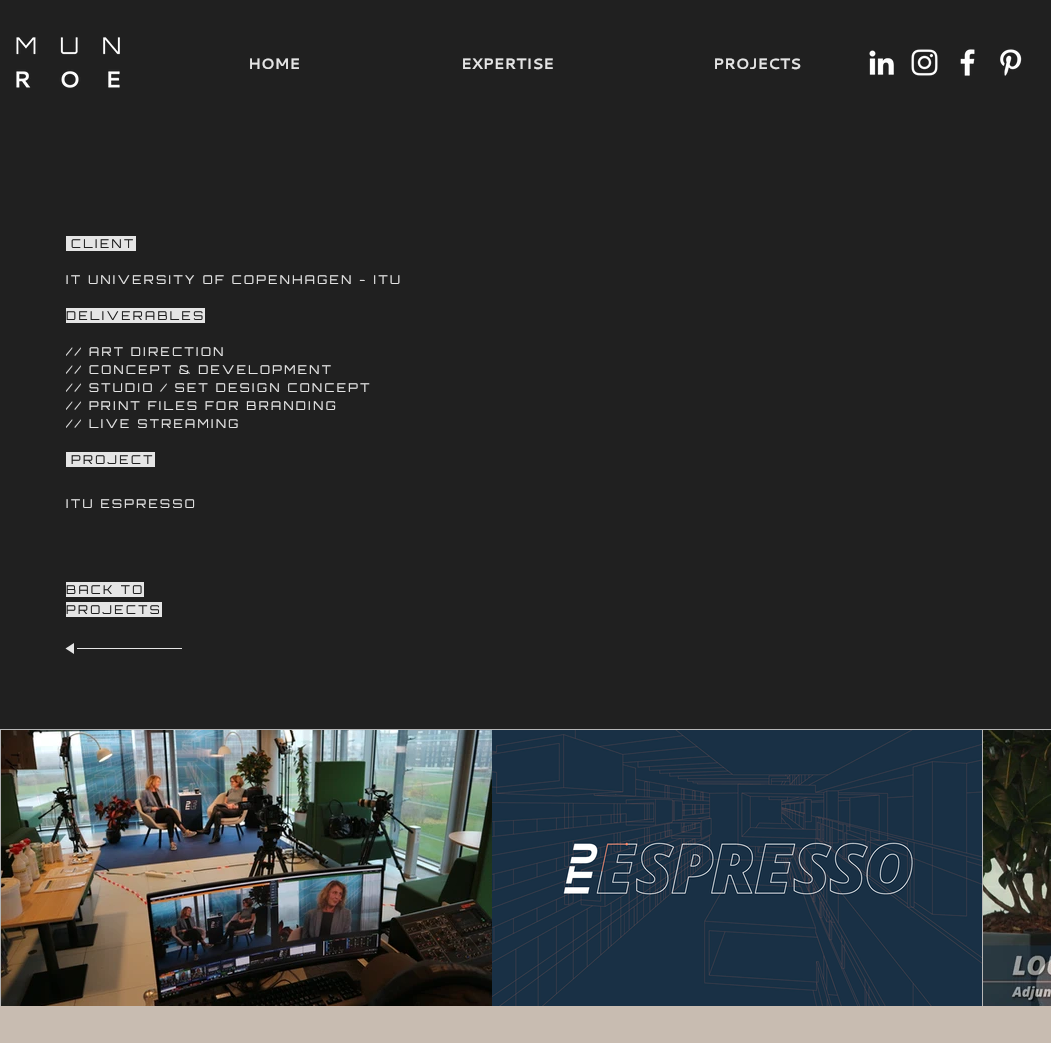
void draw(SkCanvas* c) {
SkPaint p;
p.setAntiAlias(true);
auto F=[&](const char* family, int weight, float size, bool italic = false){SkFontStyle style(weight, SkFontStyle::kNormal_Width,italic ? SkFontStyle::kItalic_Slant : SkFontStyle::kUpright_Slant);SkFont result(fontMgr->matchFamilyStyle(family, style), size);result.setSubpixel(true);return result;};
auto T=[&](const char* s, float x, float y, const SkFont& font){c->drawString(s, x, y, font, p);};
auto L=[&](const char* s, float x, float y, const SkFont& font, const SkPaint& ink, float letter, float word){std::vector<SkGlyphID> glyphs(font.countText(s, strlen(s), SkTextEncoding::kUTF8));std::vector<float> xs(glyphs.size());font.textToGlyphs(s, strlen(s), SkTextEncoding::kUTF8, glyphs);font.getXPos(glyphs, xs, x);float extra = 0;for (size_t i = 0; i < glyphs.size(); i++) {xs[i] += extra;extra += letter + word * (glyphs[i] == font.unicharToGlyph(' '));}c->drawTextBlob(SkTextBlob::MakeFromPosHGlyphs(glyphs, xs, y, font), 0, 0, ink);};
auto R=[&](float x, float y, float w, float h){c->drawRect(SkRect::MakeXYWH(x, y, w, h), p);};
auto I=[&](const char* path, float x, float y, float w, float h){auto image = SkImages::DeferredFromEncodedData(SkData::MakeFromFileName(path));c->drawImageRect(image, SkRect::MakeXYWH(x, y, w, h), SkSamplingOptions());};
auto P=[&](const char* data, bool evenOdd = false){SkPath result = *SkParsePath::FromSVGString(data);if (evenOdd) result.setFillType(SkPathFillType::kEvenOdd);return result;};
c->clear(0xffb6b6b6);
p.setColor(0xff202020);
R(0,0,1051,729);
I("1.png",16,37,104,51);
auto f1 = F("Cantarell",700,15);
p.setColor(0xffe5e5e5);
T("HOME",248,69,f1);
T("EXPERTISE",461,69,f1);
T("PROJECTS",713,69,f1);
I("2.png",869,50,25,25);
I("3.png",911,49,27,27);
I("4.png",960,49,15,27);
I("5.png",1000,49,22,27);
R(66,236,70,15);
auto f2 = F("Orbitron",400,12);
p.setColor(0xff202020);
L("CLIENT",71,248,f2,p,2.4,0);
p.setColor(0xffe5e5e5);
L("IT UNIVERSITY OF COPENHAGEN - ITU",66,284,f2,p,2.4,0);
R(66,308,139,15);
p.setColor(0xff202020);
L("DELIVERABLES",66,320,f2,p,2.4,0);
p.setColor(0xffe5e5e5);
L("// ART DIRECTION",66,356,f2,p,2.4,0);
L("// CONCEPT & DEVELOPMENT",66,374,f2,p,2.4,0);
L("// STUDIO / SET DESIGN CONCEPT",66,392,f2,p,2.4,0);
L("// PRINT FILES FOR BRANDING",66,410,f2,p,2.4,0);
L("// LIVE STREAMING",66,428,f2,p,2.4,0);
R(66,452,89,15);
p.setColor(0xff202020);
L("PROJECT",71,464,f2,p,2.4,0);
p.setColor(0xffe5e5e5);
L("ITU ESPRESSO",66,508,f2,p,2.4,0);
R(66,582,78,15);
p.setColor(0xff202020);
L("BACK TO",66,594,f2,p,2.4,0);
p.setColor(0xffe5e5e5);
R(66,602,96,15);
p.setColor(0xff202020);
L("PROJECTS",66,614,f2,p,2.4,0);
p.setColor(0xffe5e5e5);
R(77,648,105,1);
c->drawPath(P("M74 654v-11l-8.5 5.5z"),p);
I("6.png",1,730,491,276);
I("7.png",492,730,490,276);
I("8.png",983,730,68,276);
p.setColor(0xffc8bcb1);
R(0,1006,1051,37);
}
